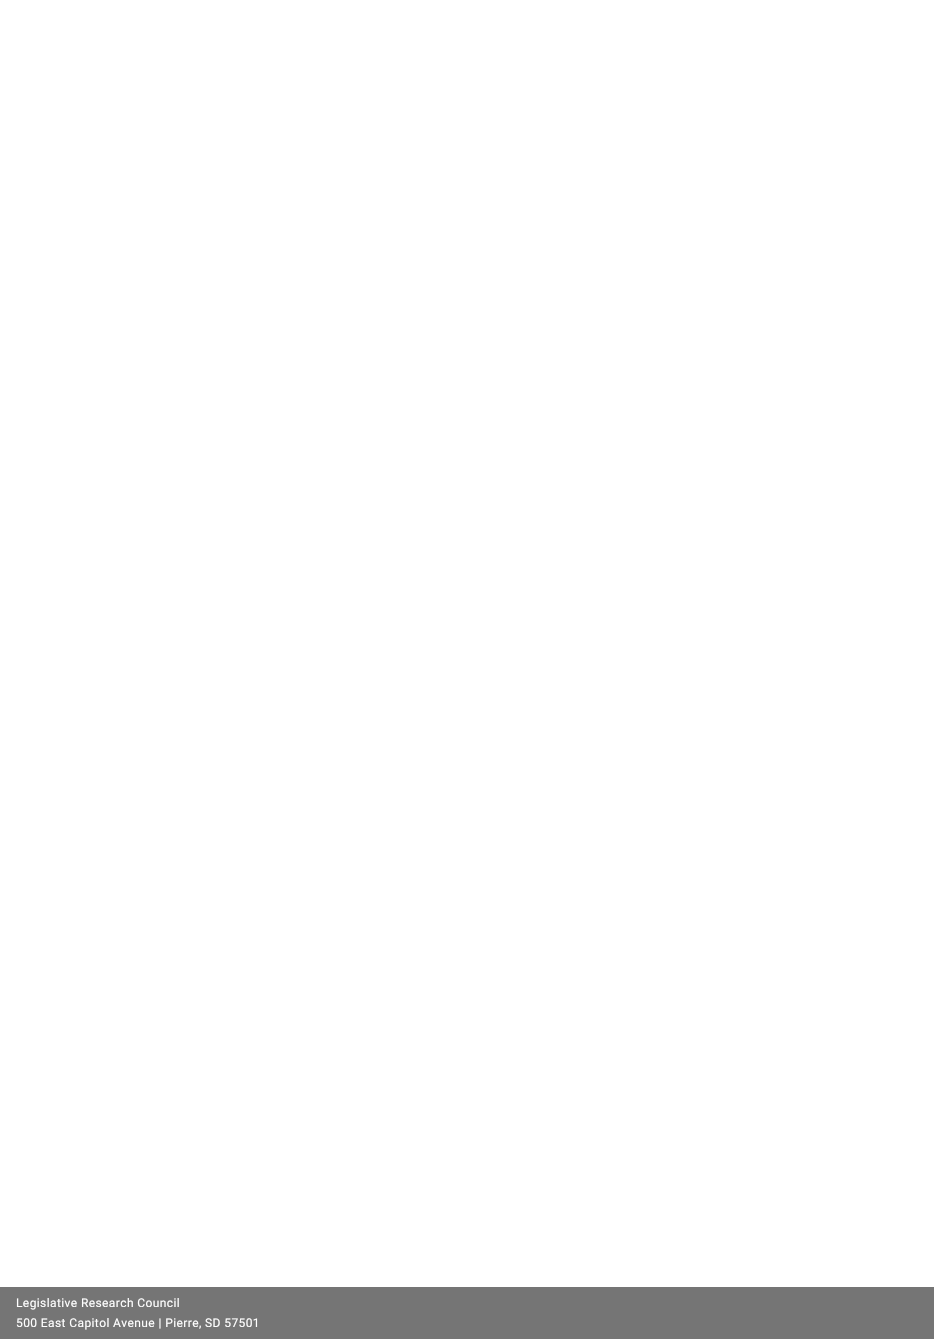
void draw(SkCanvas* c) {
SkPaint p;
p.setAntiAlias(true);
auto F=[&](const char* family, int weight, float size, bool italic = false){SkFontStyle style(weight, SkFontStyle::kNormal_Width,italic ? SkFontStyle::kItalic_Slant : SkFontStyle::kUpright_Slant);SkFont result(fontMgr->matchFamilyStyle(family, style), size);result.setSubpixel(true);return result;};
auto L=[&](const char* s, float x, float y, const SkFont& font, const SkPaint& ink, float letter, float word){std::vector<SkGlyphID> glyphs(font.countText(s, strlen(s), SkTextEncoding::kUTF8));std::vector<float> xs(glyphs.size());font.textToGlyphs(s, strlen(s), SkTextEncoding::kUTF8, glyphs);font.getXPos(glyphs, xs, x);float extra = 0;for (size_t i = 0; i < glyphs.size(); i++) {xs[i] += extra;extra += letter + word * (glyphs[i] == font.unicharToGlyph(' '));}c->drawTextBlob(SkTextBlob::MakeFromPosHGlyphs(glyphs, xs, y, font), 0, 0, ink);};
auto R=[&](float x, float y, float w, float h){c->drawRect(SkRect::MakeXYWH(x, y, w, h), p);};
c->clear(0xffffffff);
p.setColor(0xff757575);
R(0,1287,934,52);
auto f1 = F("Roboto",400,12);
p.setColor(0xffffffff);
L("Legislative Research Council",16,1307,f1,p,.4,0);
L("500 East Capitol Avenue | Pierre, SD 57501",16,1327,f1,p,.4,0);
}
